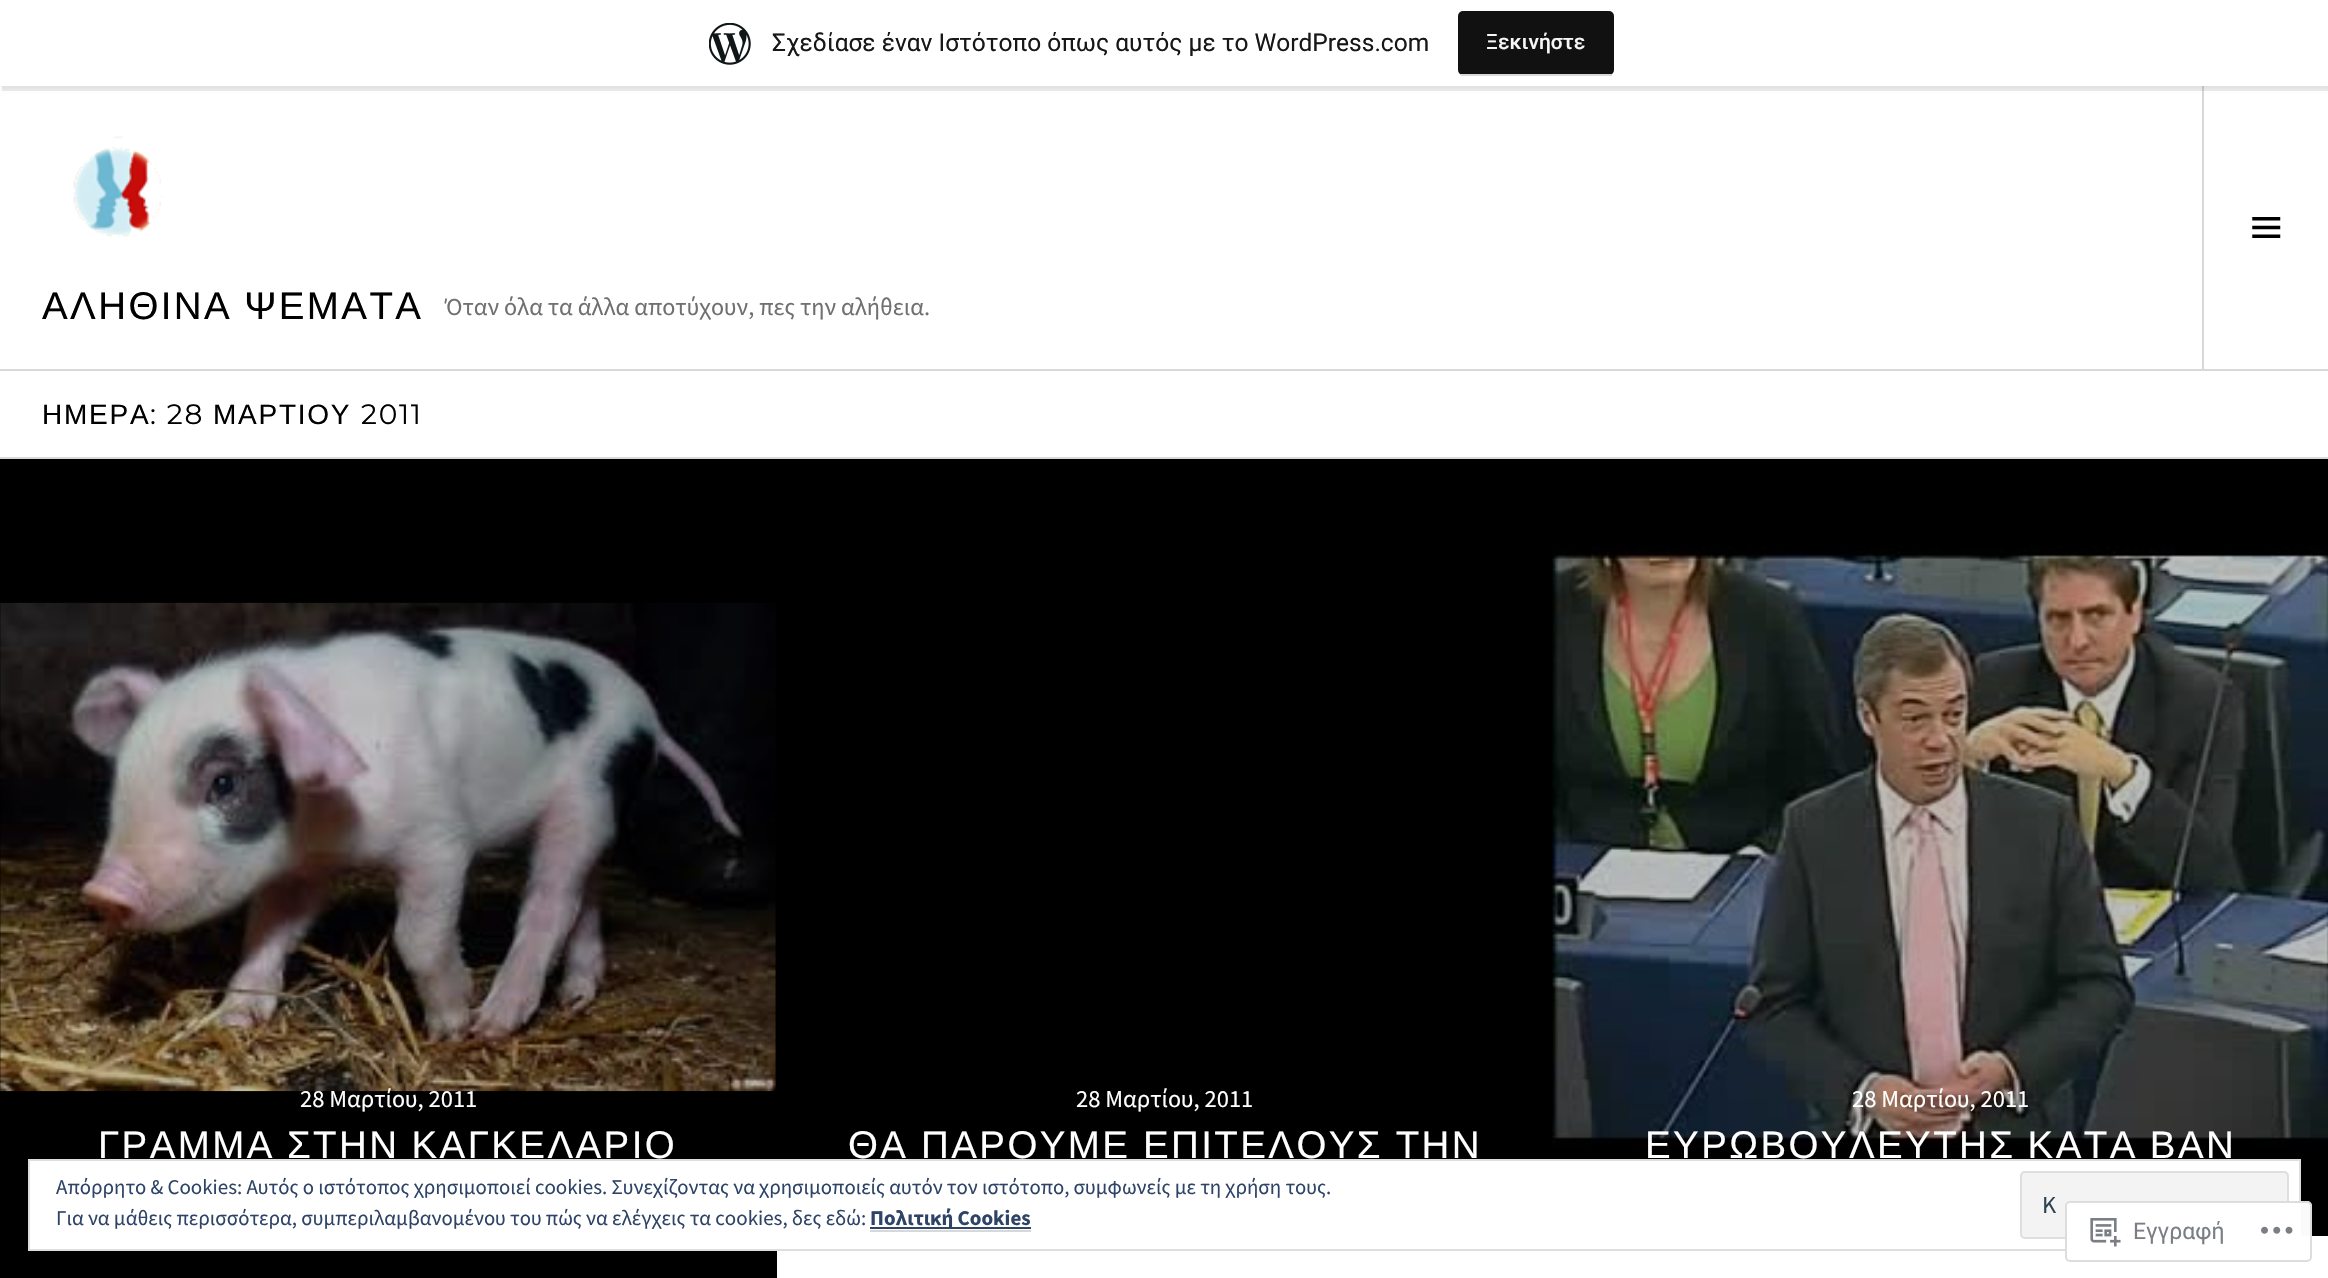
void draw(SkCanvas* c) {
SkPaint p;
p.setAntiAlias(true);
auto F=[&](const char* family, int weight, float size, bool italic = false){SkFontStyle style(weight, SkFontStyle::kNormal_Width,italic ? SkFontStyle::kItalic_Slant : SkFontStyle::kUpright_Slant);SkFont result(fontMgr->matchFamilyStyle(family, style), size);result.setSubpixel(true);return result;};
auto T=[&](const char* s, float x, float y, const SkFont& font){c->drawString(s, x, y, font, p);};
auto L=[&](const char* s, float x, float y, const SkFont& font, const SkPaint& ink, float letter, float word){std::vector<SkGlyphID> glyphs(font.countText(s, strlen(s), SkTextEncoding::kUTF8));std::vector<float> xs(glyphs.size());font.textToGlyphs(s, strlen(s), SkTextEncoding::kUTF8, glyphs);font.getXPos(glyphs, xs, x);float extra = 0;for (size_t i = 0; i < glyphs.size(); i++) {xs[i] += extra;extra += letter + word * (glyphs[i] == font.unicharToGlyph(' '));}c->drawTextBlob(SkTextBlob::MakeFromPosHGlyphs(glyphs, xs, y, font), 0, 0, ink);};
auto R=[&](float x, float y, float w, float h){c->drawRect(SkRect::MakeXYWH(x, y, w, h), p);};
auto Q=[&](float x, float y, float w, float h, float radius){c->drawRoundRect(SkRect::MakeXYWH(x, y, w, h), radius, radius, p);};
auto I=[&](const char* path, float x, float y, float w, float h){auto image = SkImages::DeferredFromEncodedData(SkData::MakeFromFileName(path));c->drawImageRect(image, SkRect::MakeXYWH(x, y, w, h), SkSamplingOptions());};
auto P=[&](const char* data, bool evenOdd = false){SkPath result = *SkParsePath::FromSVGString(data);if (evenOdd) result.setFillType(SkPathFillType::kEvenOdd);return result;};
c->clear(0xffffffff);
p.setColor(0xffd8d8d8);
R(2202,86,2,283);
p.setColor(0x0d000000);
p.setMaskFilter(SkMaskFilter::MakeBlur(kNormal_SkBlurStyle, 2));
c->drawRect(SkRect::MakeXYWH(0,2,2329,86),p);
p.setMaskFilter(nullptr);
p.setColor(0x14000000);
c->drawPath(P("M2 86v5h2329v-86h-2v81z"),p);
p.setColor(0xffffffff);
R(0,0,2328,86);
I("1.png",709,23,42,42);
auto f1 = F("Roboto",400,24.5);
p.setColor(0xff171717);
T("Σχεδίασε έναν Ιστότοπο όπως αυτός με το WordPress.com",772,51,f1);
p.setColor(0xff111111);
Q(1458,11,156,64,5);
p.setColor(0xffd8d8d8);
R(1461,74,151,2);
auto f2 = F("Roboto",500,21);
p.setColor(0xfff6f7f7);
T("Ξεκινήστε",1486,49,f2);
p.setColor(0xffd8d8d8);
R(0,369,2328,2);
I("2.png",73,136,90,101);
auto f3 = F("Liberation Sans",400,38.5);
p.setColor(0xff000000);
L("ΑΛΗΘΙΝΑ ΨΕΜΑΤΑ",42,319,f3,p,2.4,-1);
auto f4 = F("Source Sans Pro",400,24.5);
p.setColor(0xff707070);
T("Όταν όλα τα άλλα αποτύχουν, πες την αλήθεια.",445,315,f4);
I("3.png",2252,217,29,21);
p.setColor(0xffd8d8d8);
R(0,457,2328,2);
auto f5 = F("Liberation Sans",400,28);
p.setColor(0xff000000);
L("ΗΜΕΡΑ",42,424,f5,p,1.75,0);
auto f6 = F("Montserrat",400,28);
L(": 28",150,424,f6,p,1.75,0);
L("ΜΑΡΤΙΟΥ",213,424,f5,p,1.75,0);
L("2011",361,424,f6,p,1.75,0);
R(0,459,777,819);
I("4.png",0,602,776,490);
p.setColor(0xffffffff);
T("28 Μαρτίου, 2011",300,1107,f4);
L("ΓΡΑΜΜΑ ΣΤΗΝ ΚΑΓΚΕΛΑΡΙΟ",98,1158,f3,p,2.4,-1);
p.setColor(0xff000000);
R(777,459,775,700);
p.setColor(0xffffffff);
T("28 Μαρτίου, 2011",1076,1107,f4);
L("ΘΑ ΠΑΡΟΥΜΕ ΕΠΙΤΕΛΟΥΣ ΤΗΝ",848,1158,f3,p,2.4,-.5);
p.setColor(0xff000000);
R(1552,459,776,777);
I("5.png",1552,546,776,602);
p.setColor(0xffffffff);
T("28 Μαρτίου, 2011",1852,1107,f4);
L("ΕΥΡΩΒΟΥΛΕΥΤΗΣ ΚΑΤΑ ΒΑΝ",1645,1158,f3,p,2.4,-1);
c->drawRect(SkRect::MakeXYWH(29,1160,2271,90),p);
p.setStroke(true);
p.setStrokeWidth(2);
p.setColor(0xffdedede);
c->drawRect(SkRect::MakeXYWH(29,1160,2271,90),p);
auto f7 = F("Source Sans Pro",400,21);
p.setStroke(false);
p.setColor(0xff2e4467);
T("Απόρρητο & Cookies: Αυτός ο ιστότοπος χρησιμοποιεί cookies. Συνεχίζοντας να χρησιμοποιείς αυτόν τον ιστότοπο, συμφωνείς με τη χρήση τους.",56,1194,f7);
p.setColor(0xfff3f3f3);
c->drawRoundRect(SkRect::MakeXYWH(2021,1172,267,66),4,4,p);
p.setStroke(true);
p.setColor(0xffdedede);
c->drawRoundRect(SkRect::MakeXYWH(2021,1172,267,66),4,4,p);
p.setStroke(false);
p.setColor(0xff2e4453);
T("Κ",2042,1213,f4);
p.setColor(0xff2e4467);
T("Για να μάθεις περισσότερα, συμπεριλαμβανομένου του πώς να ελέγχεις τα cookies, δες εδώ:",56,1225,f7);
R(870,1227,161,2);
auto f8 = F("Source Sans Pro",700,21);
T("Πολιτική Cookies",870,1225,f8);
p.setColor(0xffd8d8d8);
R(870,1230,161,2);
p.setColor(0xfaffffff);
Q(2065,1201,247,61,5);
p.setStroke(true);
p.setColor(0xfadcdcde);
c->drawRoundRect(SkRect::MakeXYWH(2066,1202,245,59),4,4,p);
I("6.png",2090,1218,31,29);
auto f9 = F("Roboto",400,23);
p.setStroke(false);
p.setColor(0xff7b7f84);
T("Εγγραφή",2133,1239,f9);
I("7.png",2261,1226,32,8);
}
